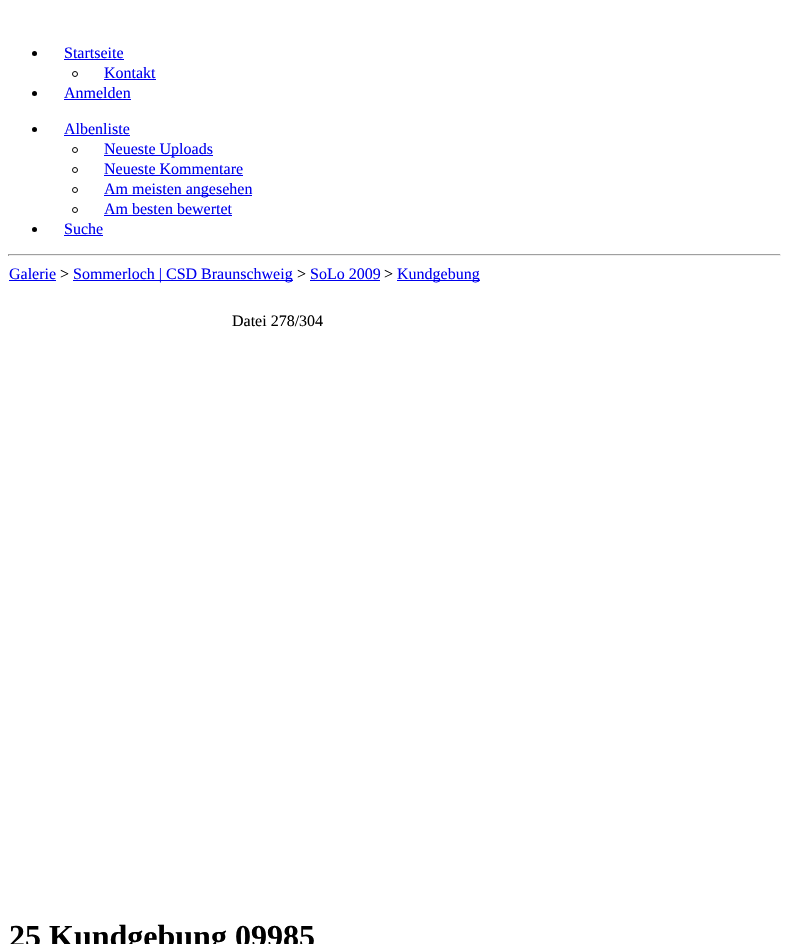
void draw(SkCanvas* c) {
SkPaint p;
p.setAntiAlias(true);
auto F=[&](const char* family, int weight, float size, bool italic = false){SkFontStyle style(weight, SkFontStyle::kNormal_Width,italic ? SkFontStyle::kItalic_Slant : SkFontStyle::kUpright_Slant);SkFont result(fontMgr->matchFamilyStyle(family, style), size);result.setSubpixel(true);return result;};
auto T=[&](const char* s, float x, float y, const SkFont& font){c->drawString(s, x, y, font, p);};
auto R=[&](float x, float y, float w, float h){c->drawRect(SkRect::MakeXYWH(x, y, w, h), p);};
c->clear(0xffffffff);
p.setColor(0xff000000);
c->drawCircle(34.5,53.5,2.5,p);
auto f1 = F("Liberation Serif",400,16);
p.setColor(0xff0000ee);
T("Startseite",64,58,f1);
R(64,59,60,1);
p.setStroke(true);
p.setStrokeWidth(1);
p.setColor(0xff000000);
c->drawCircle(75,74,2.5,p);
p.setStroke(false);
p.setColor(0xff0000ee);
T("Kontakt",104,78,f1);
R(104,79,52,1);
p.setColor(0xff000000);
c->drawCircle(34.5,93.5,2.5,p);
p.setColor(0xff0000ee);
T("Anmelden",64,98,f1);
R(64,99,67,1);
p.setColor(0xff000000);
c->drawCircle(34.5,129.5,2.5,p);
p.setColor(0xff0000ee);
T("Albenliste",64,134,f1);
R(64,135,66,1);
p.setStroke(true);
p.setColor(0xff000000);
c->drawCircle(75,150,2.5,p);
p.setStroke(false);
p.setColor(0xff0000ee);
R(104,155,109,1);
T("Neueste Uploads",104,154,f1);
p.setStroke(true);
p.setColor(0xff000000);
c->drawCircle(75,170,2.5,p);
p.setStroke(false);
p.setColor(0xff0000ee);
T("Neueste Kommentare",104,174,f1);
R(104,175,139,1);
p.setStroke(true);
p.setColor(0xff000000);
c->drawCircle(75,190,2.5,p);
p.setStroke(false);
p.setColor(0xff0000ee);
R(104,195,148,1);
T("Am meisten angesehen",104,194,f1);
p.setStroke(true);
p.setColor(0xff000000);
c->drawCircle(75,210,2.5,p);
p.setStroke(false);
p.setColor(0xff0000ee);
T("Am besten bewertet",104,214,f1);
R(104,215,128,1);
p.setColor(0xff000000);
c->drawCircle(34.5,229.5,2.5,p);
p.setColor(0xff0000ee);
T("Suche",64,234,f1);
R(64,235,39,1);
p.setColor(0xff9f9f9f);
R(8,254,773,1);
p.setColor(0xffeeeeee);
R(780,254,1,2);
R(8,255,773,1);
p.setColor(0xff9f9f9f);
R(8,254,1,2);
p.setColor(0xff0000ee);
T("Galerie",9,279,f1);
R(9,280,47,1);
p.setColor(0xff000000);
T(">",60,279,f1);
p.setColor(0xff0000ee);
R(73,280,220,1);
T("Sommerloch | CSD Braunschweig",73,279,f1);
p.setColor(0xff000000);
T(">",297,279,f1);
p.setColor(0xff0000ee);
T("SoLo 2009",310,279,f1);
R(310,280,70,1);
p.setColor(0xff000000);
T(">",384,279,f1);
p.setColor(0xff0000ee);
R(397,280,83,1);
T("Kundgebung",397,279,f1);
p.setColor(0xff000000);
T("Datei 278/304",232,326,f1);
auto f2 = F("Liberation Serif",700,32);
T("25 Kundgebung 09985",9,947,f2);
}
